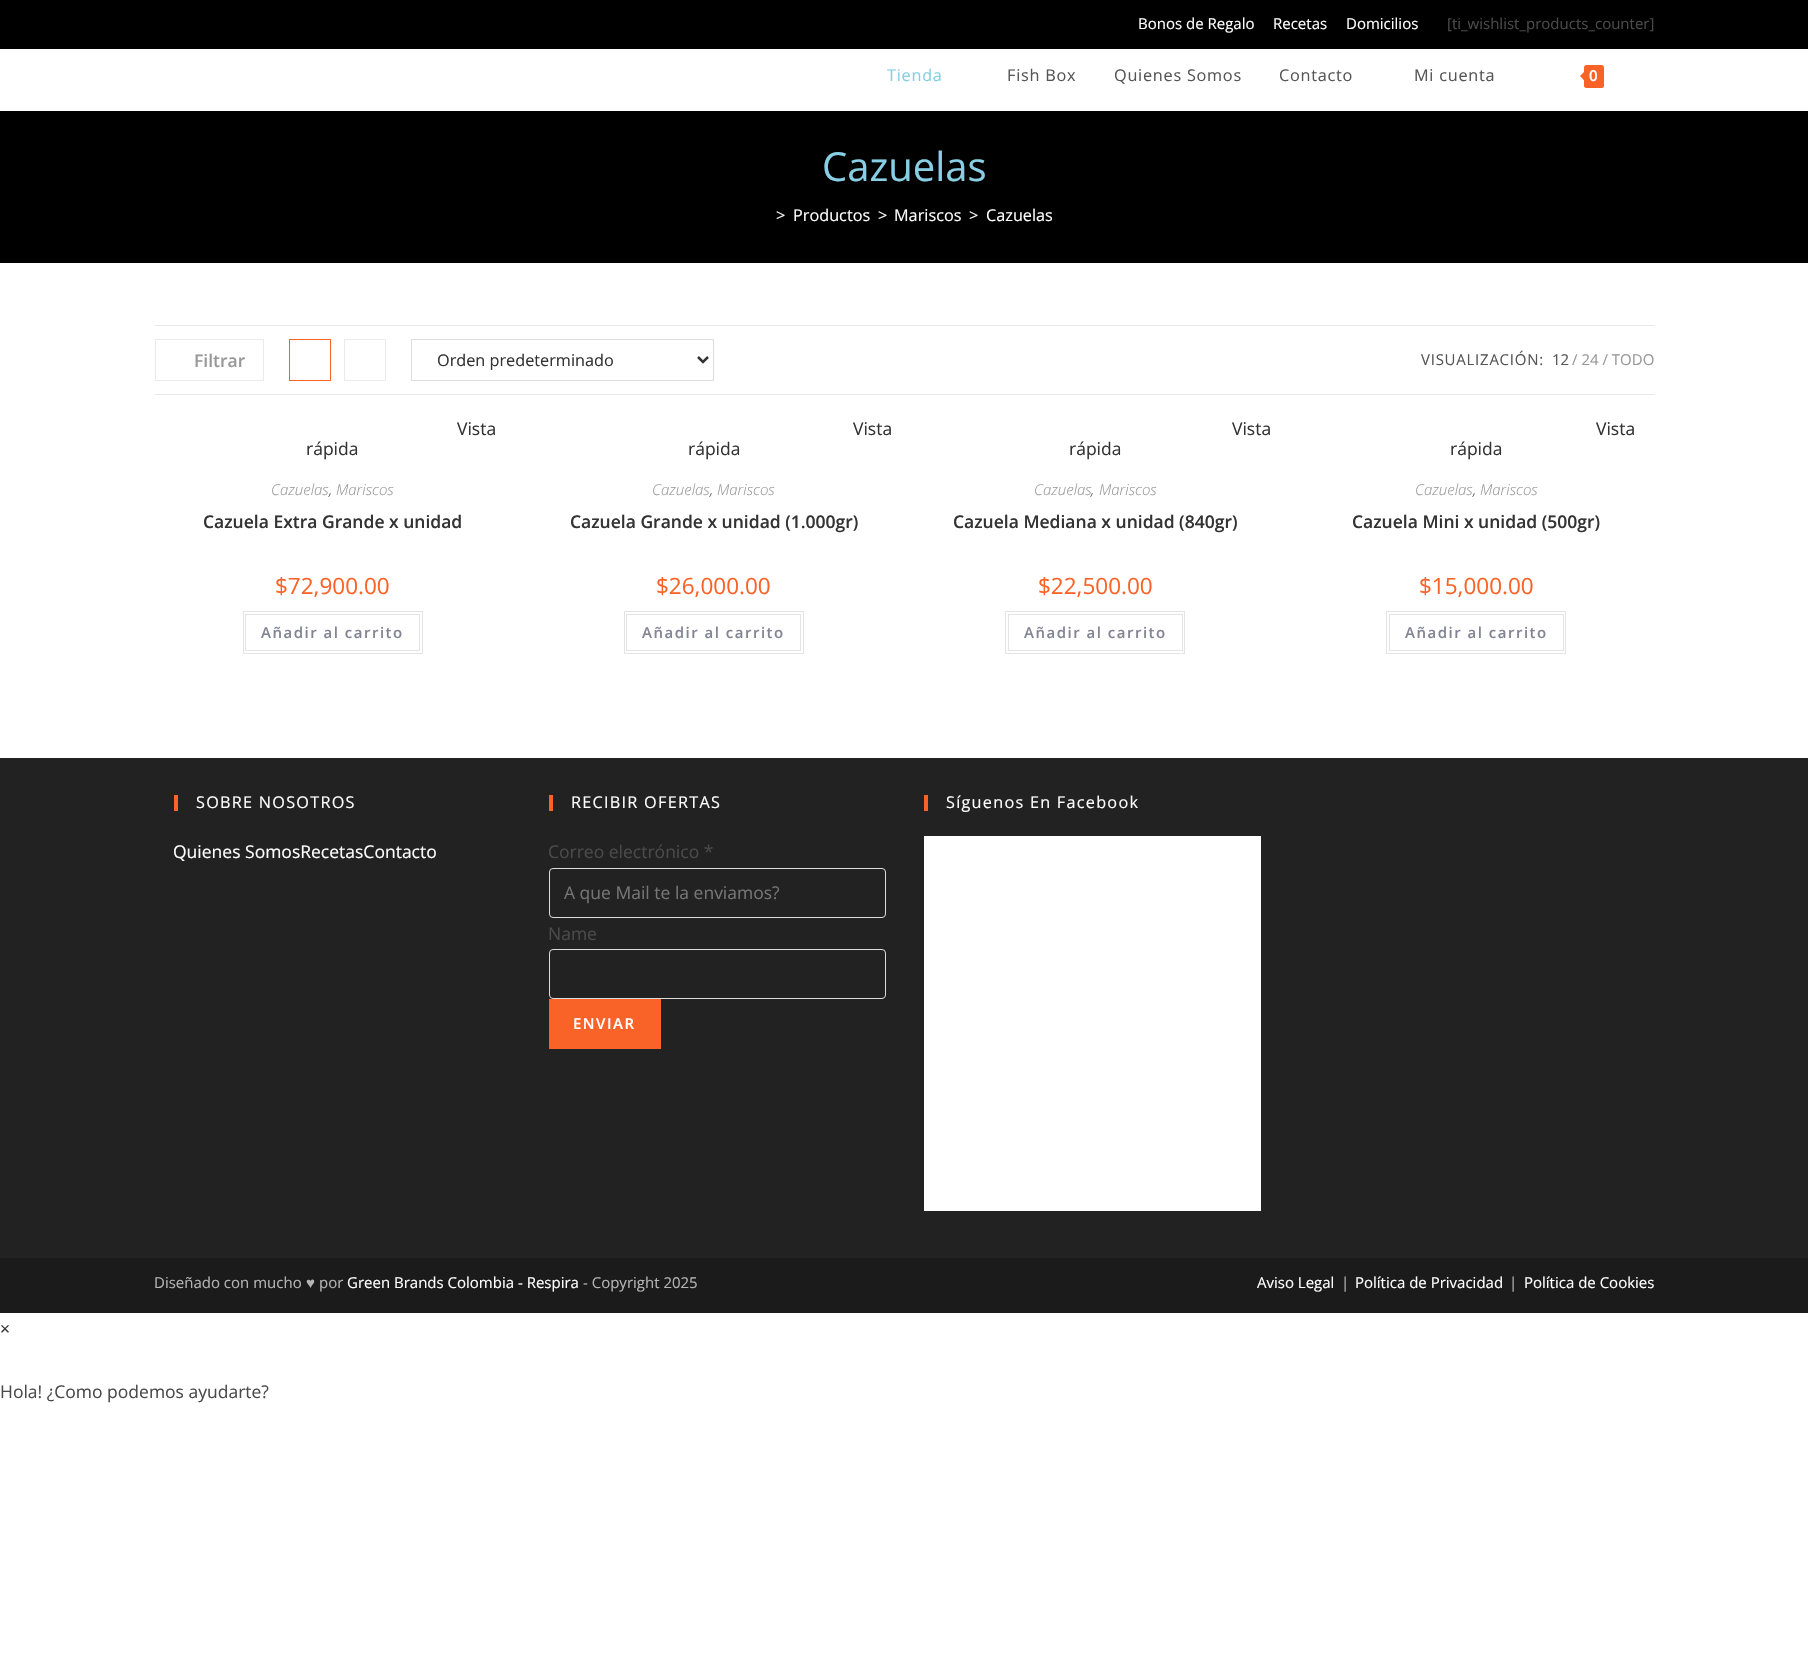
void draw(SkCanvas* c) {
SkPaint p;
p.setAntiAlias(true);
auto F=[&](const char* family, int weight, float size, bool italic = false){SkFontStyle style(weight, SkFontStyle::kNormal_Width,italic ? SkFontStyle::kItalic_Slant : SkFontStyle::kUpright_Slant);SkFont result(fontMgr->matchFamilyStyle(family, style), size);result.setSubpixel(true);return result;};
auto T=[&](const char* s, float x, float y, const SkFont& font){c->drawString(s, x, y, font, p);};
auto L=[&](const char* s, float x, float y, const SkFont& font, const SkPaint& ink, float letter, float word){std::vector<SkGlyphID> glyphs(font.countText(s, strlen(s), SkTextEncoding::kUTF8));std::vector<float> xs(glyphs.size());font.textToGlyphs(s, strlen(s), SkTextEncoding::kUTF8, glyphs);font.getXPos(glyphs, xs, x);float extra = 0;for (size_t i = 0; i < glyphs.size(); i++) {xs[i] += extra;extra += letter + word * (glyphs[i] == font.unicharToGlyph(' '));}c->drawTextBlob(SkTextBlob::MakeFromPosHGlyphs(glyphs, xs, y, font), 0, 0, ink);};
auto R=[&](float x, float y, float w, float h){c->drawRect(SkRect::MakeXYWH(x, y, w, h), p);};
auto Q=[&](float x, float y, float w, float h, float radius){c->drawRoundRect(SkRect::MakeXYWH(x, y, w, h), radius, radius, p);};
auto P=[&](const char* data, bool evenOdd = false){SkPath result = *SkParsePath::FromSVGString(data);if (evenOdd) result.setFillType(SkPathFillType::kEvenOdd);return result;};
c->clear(0xffffffff);
p.setColor(0xff000000);
R(0,0,1808,49);
auto f1 = F("Open Sans",400,15);
p.setColor(0xffffffff);
T("Bonos de Regalo",1138,29,f1);
T("Recetas",1273,29,f1);
T("Domicilios",1346,29,f1);
p.setColor(0xff4a4a4a);
T("[ti_wishlist_products_counter]",1447,29,f1);
auto f2 = F("Open Sans",400,16.25);
p.setColor(0xff88cfe5);
L("Tienda",887,81,f2,p,.75,0);
p.setColor(0xff555555);
L("Fish Box",1007,81,f2,p,.75,0);
L("Quienes Somos",1114,81,f2,p,.75,0);
L("Contacto",1279,81,f2,p,.75,0);
L("Mi cuenta",1414,81,f2,p,.75,0);
p.setColor(0xfff96328);
Q(1584,65,20,23,2.5);
c->drawPath(P("M1586 70v12.5l-6-6.5z"),p);
auto f3 = F("Open Sans",600,15);
p.setColor(0xffffffff);
T("0",1589,81,f3);
p.setColor(0xff000000);
R(0,111,1808,152);
auto f4 = F("Open Sans",400,40);
p.setColor(0xff88cfe5);
T("Cazuelas",822,181,f4);
p.setColor(0xffffffff);
T(">",776,221,f2);
T("Productos",793,221,f2);
T(">",878,221,f2);
T("Mariscos",894,221,f2);
T(">",969,221,f2);
T("Cazuelas",986,221,f2);
p.setColor(0xffeaeaea);
R(155,325,1500,1);
R(155,394,1500,1);
p.setStroke(true);
p.setStrokeWidth(1);
c->drawRect(SkRect::MakeXYWH(155.5,339.5,108,41),p);
auto f5 = F("Open Sans",600,17.5);
p.setStroke(false);
p.setColor(0xff999999);
T("Filtrar",194,367,f5);
p.setStroke(true);
p.setColor(0xfff96328);
c->drawRect(SkRect::MakeXYWH(289.5,339.5,41,41),p);
p.setColor(0xffeaeaea);
c->drawRect(SkRect::MakeXYWH(344.5,339.5,41,41),p);
p.setColor(0xffdddddd);
c->drawRect(SkRect::MakeXYWH(411.5,339.5,302,41),p);
p.setStrokeWidth(2.5);
p.setColor(0xff333333);
c->drawPath(P("M698 357l5 5l5-5"),p);
p.setStroke(false);
T("Orden predeterminado",437,366,f2);
p.setColor(0xff555555);
L("VISUALIZACIÓN:",1421,365,f1,p,.75,0);
T("12",1552,365,f1);
p.setColor(0xff999999);
T("/ 24 / TODO",1572,365,f1);
auto f6 = F("Open Sans",400,17.5);
p.setColor(0xff333333);
T("Vista",457,435,f6);
T("rápida",306,455,f6);
auto f7 = F("Open Sans",300,15,true);
p.setColor(0xff999999);
T("Cazuelas",271,495,f7);
p.setColor(0xff4a4a4a);
T(",",329,495,f7);
p.setColor(0xff999999);
T("Mariscos",336,495,f7);
p.setColor(0xff333333);
T("Cazuela Extra Grande x unidad",203,528,f5);
auto f8 = F("Open Sans",400,22.5);
p.setColor(0xfff96328);
T("$72,900.00",275,594,f8);
p.setStroke(true);
p.setStrokeWidth(1);
p.setColor(0xffe4e4e4);
c->drawRect(SkRect::MakeXYWH(243.5,611.5,179,42),p);
c->drawRect(SkRect::MakeXYWH(245.5,614.5,174,36),p);
p.setStroke(false);
p.setColor(0xff848494);
L("Añadir al carrito",261,638,f3,p,1.5,0);
p.setColor(0xff333333);
T("Vista",853,435,f6);
T("rápida",688,455,f6);
p.setColor(0xff999999);
T("Cazuelas",652,495,f7);
p.setColor(0xff4a4a4a);
T(",",710,495,f7);
p.setColor(0xff999999);
T("Mariscos",717,495,f7);
p.setColor(0xff333333);
T("Cazuela Grande x unidad (1.000gr)",570,528,f5);
p.setColor(0xfff96328);
T("$26,000.00",656,594,f8);
p.setStroke(true);
p.setColor(0xffe4e4e4);
c->drawRect(SkRect::MakeXYWH(624.5,611.5,179,42),p);
c->drawRect(SkRect::MakeXYWH(626.5,614.5,174,36),p);
p.setStroke(false);
p.setColor(0xff848494);
L("Añadir al carrito",642,638,f3,p,1.5,0);
p.setColor(0xff333333);
T("Vista",1232,435,f6);
T("rápida",1069,455,f6);
p.setColor(0xff999999);
T("Cazuelas",1034,495,f7);
T("Mariscos",1099,495,f7);
p.setColor(0xff4a4a4a);
T(",",1091,495,f7);
p.setColor(0xff333333);
T("Cazuela Mediana x unidad (840gr)",953,528,f5);
p.setColor(0xfff96328);
T("$22,500.00",1038,594,f8);
p.setStroke(true);
p.setColor(0xffe4e4e4);
c->drawRect(SkRect::MakeXYWH(1005.5,611.5,179,42),p);
c->drawRect(SkRect::MakeXYWH(1008.5,614.5,174,36),p);
p.setStroke(false);
p.setColor(0xff848494);
L("Añadir al carrito",1024,638,f3,p,1.5,0);
p.setColor(0xff333333);
T("Vista",1596,435,f6);
T("rápida",1450,455,f6);
p.setColor(0xff999999);
T("Cazuelas",1415,495,f7);
p.setColor(0xff4a4a4a);
T(",",1473,495,f7);
p.setColor(0xff999999);
T("Mariscos",1480,495,f7);
p.setColor(0xff333333);
T("Cazuela Mini x unidad (500gr)",1352,528,f5);
p.setColor(0xfff96328);
T("$15,000.00",1419,594,f8);
p.setStroke(true);
p.setColor(0xffe4e4e4);
c->drawRect(SkRect::MakeXYWH(1386.5,611.5,179,42),p);
c->drawRect(SkRect::MakeXYWH(1389.5,614.5,174,36),p);
p.setStroke(false);
p.setColor(0xff848494);
L("Añadir al carrito",1405,638,f3,p,1.5,0);
p.setColor(0xff222222);
R(0,758,1808,500);
p.setColor(0xfff96328);
R(174,795,4,16);
p.setColor(0xffffffff);
L("SOBRE NOSOTROS",196,808,f2,p,1.25,0);
T("Quienes SomosRecetasContacto",173,858,f6);
p.setColor(0xfff96328);
R(549,795,4,16);
p.setColor(0xffffffff);
L("RECIBIR OFERTAS",571,808,f2,p,1.25,0);
p.setColor(0xff4a4a4a);
T("Correo electrónico *",548,858,f6);
p.setStroke(true);
p.setColor(0xffdddddd);
c->drawRoundRect(SkRect::MakeXYWH(549.5,868.5,336,49),3.5,3.5,p);
p.setStroke(false);
p.setColor(0xff757575);
T("A que Mail te la enviamos?",564,899,f6);
p.setColor(0xff4a4a4a);
T("Name",548,940,f6);
p.setStroke(true);
p.setColor(0xffdddddd);
c->drawRoundRect(SkRect::MakeXYWH(549.5,949.5,336,49),3.5,3.5,p);
p.setStroke(false);
p.setColor(0xfff96328);
R(549,999,112,50);
p.setColor(0xffffffff);
L("ENVIAR",573,1029,f3,p,1.5,0);
p.setColor(0xfff96328);
R(924,795,4,16);
p.setColor(0xffffffff);
L("Síguenos En Facebook",946,808,f2,p,1.25,0);
R(924,836,337,375);
p.setColor(0xff1b1b1b);
R(0,1258,1808,55);
p.setColor(0xffb5b5b5);
T("Diseñado con mucho",154,1288,f1);
auto f9 = F("Liberation Sans",400,15);
T("♥",306,1288,f9);
T("por",319,1288,f1);
p.setColor(0xffffffff);
T("Green Brands Colombia - Respira",347,1288,f1);
p.setColor(0xffb5b5b5);
T("- Copyright 2025",583,1288,f1);
p.setColor(0xffffffff);
T("Aviso Legal",1257,1288,f1);
p.setColor(0xffb5b5b5);
T("|",1341,1288,f1);
p.setColor(0xffffffff);
T("Política de Privacidad",1355,1288,f1);
p.setColor(0xffb5b5b5);
T("|",1509,1288,f1);
p.setColor(0xffffffff);
T("Política de Cookies",1524,1288,f1);
p.setColor(0xff333333);
T("×",0,1335,f6);
p.setColor(0xff4a4a4a);
T("Hola! ¿Como podemos ayudarte?",0,1398,f6);
}
